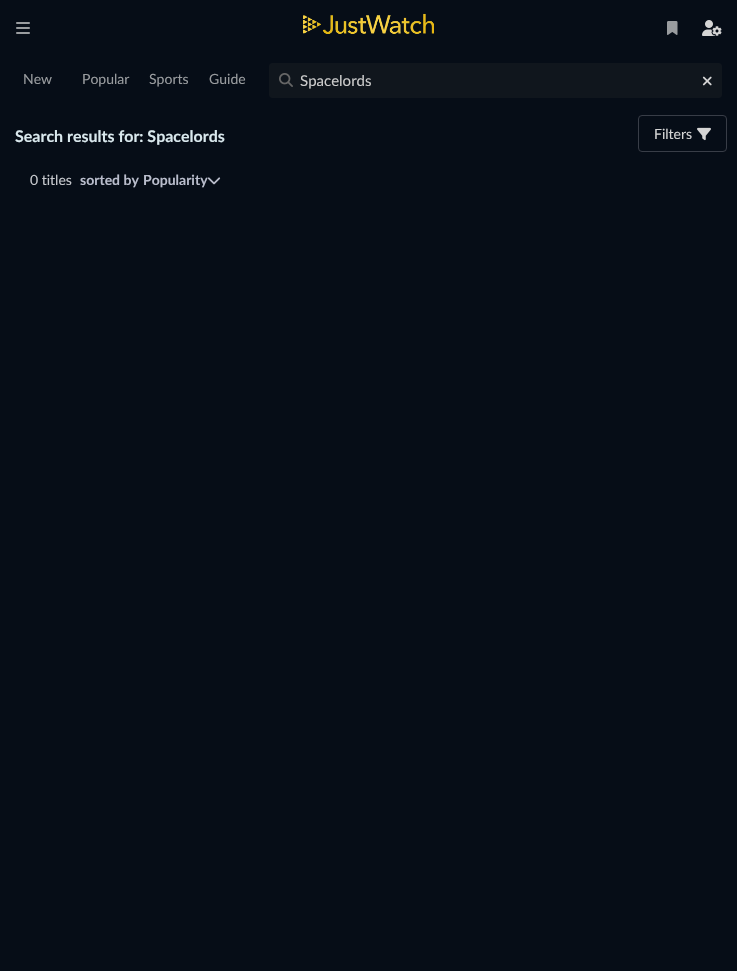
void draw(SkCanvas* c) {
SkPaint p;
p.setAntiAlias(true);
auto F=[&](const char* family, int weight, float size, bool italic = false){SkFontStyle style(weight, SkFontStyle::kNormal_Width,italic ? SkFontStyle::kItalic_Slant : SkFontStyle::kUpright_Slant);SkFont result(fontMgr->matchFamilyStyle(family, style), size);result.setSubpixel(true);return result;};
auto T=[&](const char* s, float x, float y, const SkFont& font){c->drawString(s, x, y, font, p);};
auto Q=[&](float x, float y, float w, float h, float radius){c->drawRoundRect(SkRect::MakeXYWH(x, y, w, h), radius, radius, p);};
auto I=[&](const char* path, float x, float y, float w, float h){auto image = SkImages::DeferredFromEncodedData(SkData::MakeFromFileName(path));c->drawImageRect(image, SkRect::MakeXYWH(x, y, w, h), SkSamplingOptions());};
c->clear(0xff060d17);
I("1.png",303,13,131,21);
I("2.png",16,22,14,12);
I("3.png",702,20,20,16);
I("4.png",667,21,11,14);
auto f1 = F("Lato",400,14);
p.setColor(0xff999c9f);
T("New",23,84,f1);
T("Popular",82,84,f1);
T("Sports",149,84,f1);
T("Guide",209,84,f1);
p.setColor(0xff10161d);
Q(269,63,453,35,4);
I("5.png",279,73,14,14);
auto f2 = F("Lato",400,15);
p.setColor(0xffcccccc);
T("Spacelords",300,86,f2);
I("6.png",702,76,10,10);
auto f3 = F("Lato",700,16);
p.setColor(0xffd9e8ed);
T("Search results for: Spacelords",15,142,f3);
p.setStroke(true);
p.setStrokeWidth(1);
p.setColor(0xff383d47);
c->drawRoundRect(SkRect::MakeXYWH(638.5,115.5,88,36),3.5,3.5,p);
p.setStroke(false);
p.setColor(0xffd5d5d5);
T("Filters",654,139,f1);
I("7.png",697,127,14,14);
p.setColor(0xffc6c8cd);
T("0 titles",30,185,f1);
auto f4 = F("Lato",700,14);
p.setColor(0xffb9bdcc);
T("sorted by",80,185,f4);
T("Popularity",143,185,f4);
I("8.png",207,177,14,8);
}
